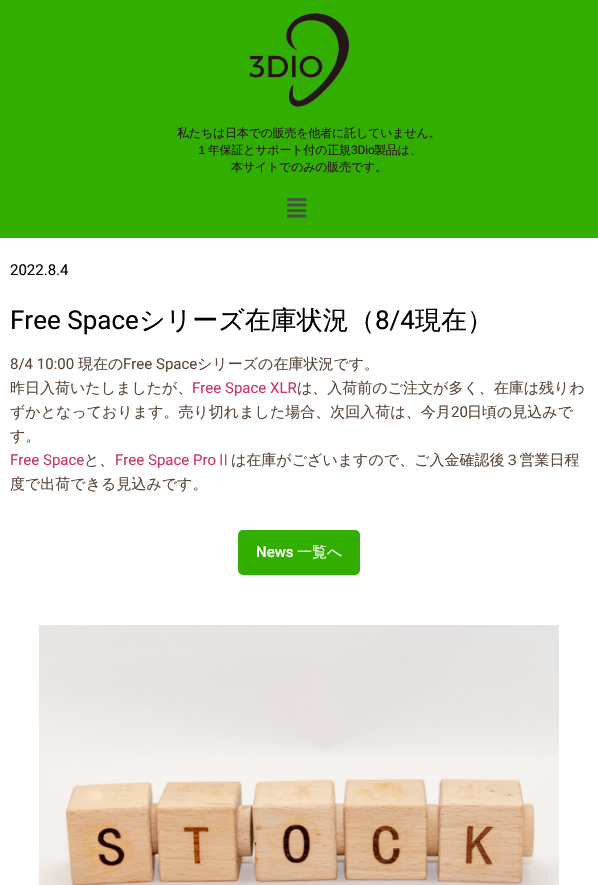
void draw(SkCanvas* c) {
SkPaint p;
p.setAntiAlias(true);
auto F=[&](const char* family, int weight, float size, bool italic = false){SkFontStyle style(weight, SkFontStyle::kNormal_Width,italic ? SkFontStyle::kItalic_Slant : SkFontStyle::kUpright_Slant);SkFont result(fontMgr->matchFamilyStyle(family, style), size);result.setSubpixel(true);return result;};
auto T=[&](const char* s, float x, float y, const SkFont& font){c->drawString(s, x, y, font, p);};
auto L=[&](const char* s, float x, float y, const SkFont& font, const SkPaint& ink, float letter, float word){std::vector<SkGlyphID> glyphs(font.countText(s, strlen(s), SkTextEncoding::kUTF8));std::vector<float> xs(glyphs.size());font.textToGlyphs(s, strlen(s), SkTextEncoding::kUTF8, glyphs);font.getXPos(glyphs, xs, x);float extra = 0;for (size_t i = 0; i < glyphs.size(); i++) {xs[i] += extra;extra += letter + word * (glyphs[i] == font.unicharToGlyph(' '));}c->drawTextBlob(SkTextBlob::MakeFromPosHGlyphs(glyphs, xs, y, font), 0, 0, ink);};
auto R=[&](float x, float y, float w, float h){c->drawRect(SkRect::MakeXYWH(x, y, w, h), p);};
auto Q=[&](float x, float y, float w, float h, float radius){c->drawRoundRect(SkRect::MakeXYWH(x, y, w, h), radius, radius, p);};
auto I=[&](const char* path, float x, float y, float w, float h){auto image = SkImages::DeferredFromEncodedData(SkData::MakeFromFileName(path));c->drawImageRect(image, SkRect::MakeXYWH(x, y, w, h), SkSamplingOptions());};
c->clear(0xffffffff);
p.setColor(0xff31ae00);
R(0,0,598,238);
I("1.png",249,13,100,94);
auto f1 = F("WenQuanYi Zen Hei",500,12);
p.setColor(0xff231815);
L("私たちは日本での販売を他者に託していません。",177,137,f1,p,-.2,0);
L("１年保証とサポート付の正規",196,154,f1,p,-.2,0);
auto f2 = F("Roboto",400,12);
L("3Dio",351,154,f2,p,-.2,0);
L("製品は、",374,154,f1,p,-.2,0);
L("本サイトでのみの販売です。",231,171,f1,p,-.2,0);
I("2.png",287,198,20,20);
auto f3 = F("Roboto",400,15);
p.setColor(0xff000000);
T("2022.8.4",10,275,f3);
auto f4 = F("Roboto",400,26);
T("Free Space",10,329,f4);
auto f5 = F("WenQuanYi Zen Hei",500,26);
T("シリーズ在庫状況（",139,329,f5);
T("8/4",375,329,f4);
T("現在）",415,329,f5);
p.setColor(0xff5b4639);
T("8/4 10:00",10,369,f3);
auto f6 = F("WenQuanYi Zen Hei",500,15);
T("現在の",78,369,f6);
T("Free Space",123,369,f3);
T("シリーズの在庫状況です。",197,369,f6);
T("昨日入荷いたしましたが、",10,393,f6);
p.setColor(0xffcc3366);
T("Free Space XLR",192,393,f3);
p.setColor(0xff5b4639);
T("は、入荷前のご注文が多く、在庫は残りわ",297,393,f6);
T("ずかとなっております。売り切れました場合、次回入荷は、今月",10,417,f6);
T("20",451,417,f3);
T("日頃の見込みで",467,417,f6);
T("す。",10,441,f6);
p.setColor(0xffcc3366);
T("Free Space",10,465,f3);
p.setColor(0xff5b4639);
T("と、",84,465,f6);
p.setColor(0xffcc3366);
T("Free Space Pro",115,465,f3);
T("Ⅱ",216,465,f6);
p.setColor(0xff5b4639);
T("は在庫がございますので、ご入金確認後３営業日程",231,465,f6);
T("度で出荷できる見込みです。",10,489,f6);
p.setColor(0xff31ae00);
Q(238,530,122,45,5);
auto f7 = F("Roboto",500,15);
p.setColor(0xffffffff);
T("News",256,557,f7);
T("一覧へ",297,557,f6);
I("3.png",39,625,520,260);
}
